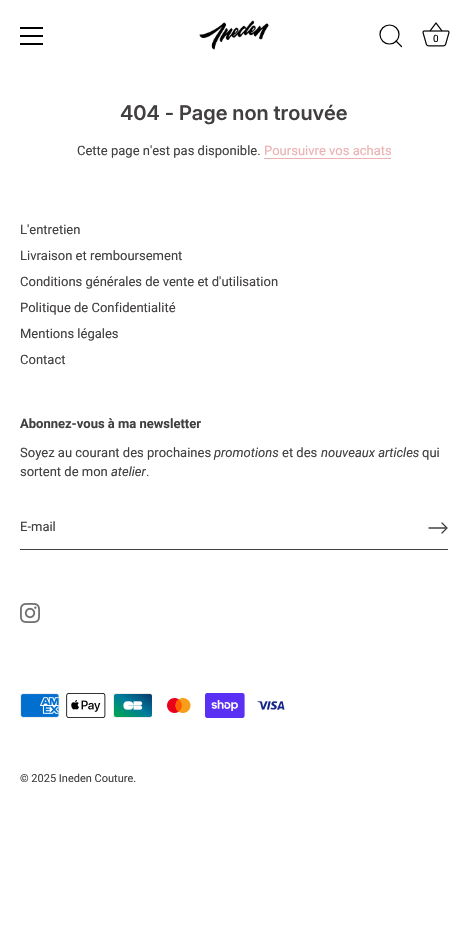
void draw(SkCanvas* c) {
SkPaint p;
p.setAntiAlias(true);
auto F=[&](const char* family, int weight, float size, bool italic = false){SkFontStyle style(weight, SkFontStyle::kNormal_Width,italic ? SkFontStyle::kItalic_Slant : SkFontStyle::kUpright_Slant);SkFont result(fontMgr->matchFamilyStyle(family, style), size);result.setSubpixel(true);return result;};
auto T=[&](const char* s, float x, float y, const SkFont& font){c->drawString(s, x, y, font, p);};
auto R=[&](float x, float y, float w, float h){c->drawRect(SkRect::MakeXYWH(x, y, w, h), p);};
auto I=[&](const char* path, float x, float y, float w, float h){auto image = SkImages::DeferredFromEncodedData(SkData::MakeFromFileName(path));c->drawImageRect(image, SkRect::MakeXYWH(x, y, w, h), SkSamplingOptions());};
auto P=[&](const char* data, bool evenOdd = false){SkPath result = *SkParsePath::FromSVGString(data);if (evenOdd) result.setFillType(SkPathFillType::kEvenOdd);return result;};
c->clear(0xffffffff);
p.setColor(0xff000000);
R(20,27,23,2);
R(20,35,23,2);
R(20,43,23,2);
I("1.png",199,20,70,30);
p.setStroke(true);
p.setStrokeWidth(1.2);
c->drawCircle(389.5,34.5,9.5,p);
p.setStrokeCap(SkPaint::kRound_Cap);
p.setStrokeJoin(SkPaint::kRound_Join);
c->drawPath(P("M401.5 46.5l-5.5-5.5"),p);
I("2.png",422,22,28,25);
auto f1 = F("Roboto",400,10);
p.setStroke(false);
T("0",433,42,f1);
auto f2 = F("Inter",600,20.25);
p.setColor(0xff423f3f);
T("404 - Page non trouvée",120,120,f2);
auto f3 = F("Roboto",400,13);
T("Cette page n'est pas disponible.",77,155,f3);
p.setColor(0xffecb1b0);
T("Poursuivre vos achats",264,155,f3);
R(264,158,127,1);
p.setColor(0xff423f3f);
T("L'entretien",20,234,f3);
T("Livraison et remboursement",20,260,f3);
T("Conditions générales de vente et d'utilisation",20,286,f3);
T("Politique de Confidentialité",20,312,f3);
T("Mentions légales",20,338,f3);
T("Contact",20,364,f3);
auto f4 = F("Roboto",700,13);
T("Abonnez-vous à ma newsletter",20,428,f4);
T("Soyez au courant des prochaines",20,457,f3);
auto f5 = F("Roboto",400,13,true);
T("promotions",214,457,f5);
T("et des",282,457,f3);
T("nouveaux articles",321,457,f5);
T("qui",422,457,f3);
T("sortent de mon",20,476,f3);
T("atelier",111,476,f5);
T(".",146,476,f3);
R(20,549,428,1);
T("E-mail",20,531,f3);
p.setStroke(true);
p.setStrokeWidth(1.3);
p.setStrokeJoin(SkPaint::kMiter_Join);
c->drawPath(P("M442 533l5-5l-5-5"),p);
p.setStrokeJoin(SkPaint::kRound_Join);
c->drawPath(P("M446 528h-17"),p);
I("3.png",20,603,20,20);
I("4.png",20,693,40,25);
I("5.png",66,693,40,25);
I("6.png",113,693,39,25);
I("7.png",167,698,24,15);
I("8.png",205,693,40,25);
I("9.png",257,701,28,9);
auto f6 = F("Roboto",400,11);
p.setStroke(false);
T("© 2025 Ineden Couture.",20,782,f6);
}
